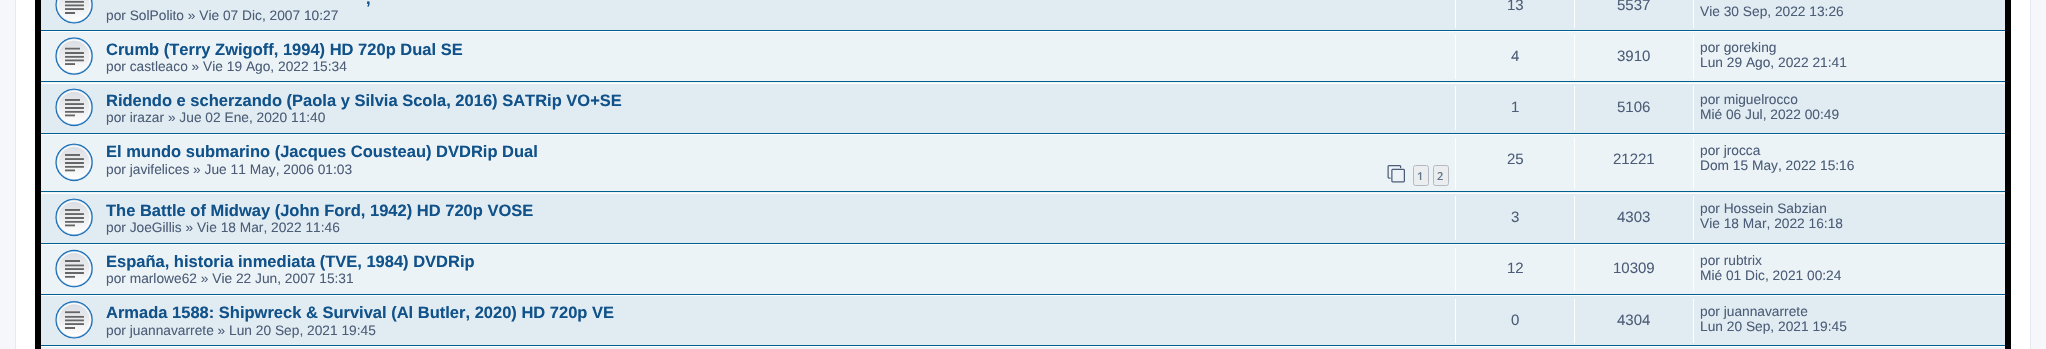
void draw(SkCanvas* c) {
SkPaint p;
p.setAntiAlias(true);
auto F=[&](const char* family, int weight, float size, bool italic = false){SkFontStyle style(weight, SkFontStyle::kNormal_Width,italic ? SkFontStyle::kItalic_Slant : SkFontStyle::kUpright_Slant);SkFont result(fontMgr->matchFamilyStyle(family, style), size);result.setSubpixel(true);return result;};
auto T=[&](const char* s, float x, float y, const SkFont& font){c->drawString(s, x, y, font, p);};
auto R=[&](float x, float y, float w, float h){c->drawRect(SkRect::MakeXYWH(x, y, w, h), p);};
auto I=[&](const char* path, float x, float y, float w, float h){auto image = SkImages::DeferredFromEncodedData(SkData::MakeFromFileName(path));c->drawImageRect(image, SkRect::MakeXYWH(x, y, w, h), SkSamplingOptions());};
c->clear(0xfff5f7fa);
p.setColor(0xffffffff);
c->drawRect(SkRect::MakeXYWH(15.5,-.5,2015,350),p);
p.setStroke(true);
p.setStrokeWidth(1);
p.setColor(0xffe6e9ed);
c->drawRect(SkRect::MakeXYWH(15.5,-.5,2015,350),p);
p.setStroke(false);
p.setColor(0xff000000);
R(35,0,1976,349);
p.setColor(0xffe1ebf2);
R(41,0,1964,30);
p.setColor(0xff00608f);
R(41,30,1964,1);
I("1.png",55,0,38,24);
auto f1 = F("Liberation Sans",700,16.5);
p.setColor(0xff105289);
T(",",366,4,f1);
auto f2 = F("Liberation Sans",400,13.75);
p.setColor(0xff4c5d77);
T("por SolPolito » Vie 07 Dic, 2007 10:27",106,20,f2);
p.setColor(0xffffffff);
R(1455,0,1,28);
auto f3 = F("Liberation Sans",400,15);
p.setColor(0xff4c5d77);
T("13",1507,10,f3);
p.setColor(0xffffffff);
R(1574,0,1,28);
p.setColor(0xff4c5d77);
T("5537",1617,10,f3);
p.setColor(0xffffffff);
R(1693,0,1,28);
p.setColor(0xff4c5d77);
T("Vie 30 Sep, 2022 13:26",1700,16,f2);
p.setColor(0xffecf3f7);
R(41,32,1964,51);
p.setColor(0xffffffff);
R(41,31,1964,1);
p.setColor(0xff00608f);
R(41,81,1964,1);
I("2.png",55,37,38,38);
p.setColor(0xff105289);
T("Crumb (Terry Zwigoff, 1994) HD 720p Dual SE",106,55,f1);
p.setColor(0xff4c5d77);
T("por castleaco » Vie 19 Ago, 2022 15:34",106,71,f2);
p.setColor(0xffffffff);
R(1455,35,1,44);
p.setColor(0xff4c5d77);
T("4",1511,61,f3);
p.setColor(0xffffffff);
R(1574,35,1,44);
p.setColor(0xff4c5d77);
T("3910",1617,61,f3);
p.setColor(0xffffffff);
R(1693,35,1,44);
p.setColor(0xff4c5d77);
T("por goreking",1700,52,f2);
T("Lun 29 Ago, 2022 21:41",1700,67,f2);
p.setColor(0xffe1ebf2);
R(41,84,1964,49);
p.setColor(0xffffffff);
R(41,83,1964,1);
p.setColor(0xff00608f);
R(41,133,1964,1);
I("3.png",55,88,38,39);
p.setColor(0xff105289);
T("Ridendo e scherzando (Paola y Silvia Scola, 2016) SATRip VO+SE",106,106,f1);
p.setColor(0xff4c5d77);
T("por irazar » Jue 02 Ene, 2020 11:40",106,122,f2);
p.setColor(0xffffffff);
R(1455,86,1,44);
p.setColor(0xff4c5d77);
T("1",1511,112,f3);
p.setColor(0xffffffff);
R(1574,86,1,44);
p.setColor(0xff4c5d77);
T("5106",1617,112,f3);
p.setColor(0xffffffff);
R(1693,86,1,44);
p.setColor(0xff4c5d77);
T("por miguelrocco",1700,104,f2);
T("Mié 06 Jul, 2022 00:49",1700,119,f2);
p.setColor(0xffecf3f7);
R(41,135,1964,58);
p.setColor(0xffffffff);
R(41,134,1964,1);
p.setColor(0xff00608f);
R(41,191,1964,1);
I("4.png",55,143,38,39);
p.setColor(0xff105289);
T("El mundo submarino (Jacques Cousteau) DVDRip Dual",106,157,f1);
p.setColor(0xff4c5d77);
T("por javifelices » Jue 11 May, 2006 01:03",106,174,f2);
I("5.png",1387,165,18,18);
p.setColor(0xffecedee);
c->drawRoundRect(SkRect::MakeXYWH(1413.5,165.5,15,20),2,2,p);
p.setStroke(true);
p.setColor(0xffb4bac0);
c->drawRoundRect(SkRect::MakeXYWH(1413.5,165.5,15,20),2,2,p);
auto f4 = F("Open Sans",600,11);
p.setStroke(false);
p.setColor(0xff5c758c);
T("1",1417,180,f4);
p.setColor(0xffecedee);
c->drawRoundRect(SkRect::MakeXYWH(1433.5,165.5,15,20),2,2,p);
p.setStroke(true);
p.setColor(0xffb4bac0);
c->drawRoundRect(SkRect::MakeXYWH(1433.5,165.5,15,20),2,2,p);
p.setStroke(false);
p.setColor(0xff5c758c);
T("2",1437,180,f4);
p.setColor(0xffffffff);
R(1455,138,1,51);
p.setColor(0xff4c5d77);
T("25",1507,164,f3);
p.setColor(0xffffffff);
R(1574,138,1,51);
p.setColor(0xff4c5d77);
T("21221",1613,164,f3);
p.setColor(0xffffffff);
R(1693,138,1,51);
p.setColor(0xff4c5d77);
T("por jrocca",1700,155,f2);
T("Dom 15 May, 2022 15:16",1700,170,f2);
p.setColor(0xffe1ebf2);
R(41,194,1964,49);
p.setColor(0xffffffff);
R(41,193,1964,1);
p.setColor(0xff00608f);
R(41,243,1964,1);
I("3.png",55,198,38,39);
p.setColor(0xff105289);
T("The Battle of Midway (John Ford, 1942) HD 720p VOSE",106,216,f1);
p.setColor(0xff4c5d77);
T("por JoeGillis » Vie 18 Mar, 2022 11:46",106,232,f2);
p.setColor(0xffffffff);
R(1455,196,1,44);
p.setColor(0xff4c5d77);
T("3",1511,222,f3);
p.setColor(0xffffffff);
R(1574,196,1,44);
p.setColor(0xff4c5d77);
T("4303",1617,222,f3);
p.setColor(0xffffffff);
R(1693,196,1,44);
p.setColor(0xff4c5d77);
T("por Hossein Sabzian",1700,213,f2);
T("Vie 18 Mar, 2022 16:18",1700,228,f2);
p.setColor(0xffecf3f7);
R(41,245,1964,49);
p.setColor(0xffffffff);
R(41,244,1964,1);
p.setColor(0xff00608f);
R(41,294,1964,1);
I("6.png",55,249,38,39);
p.setColor(0xff105289);
T("España, historia inmediata (TVE, 1984) DVDRip",106,267,f1);
p.setColor(0xff4c5d77);
T("por marlowe62 » Vie 22 Jun, 2007 15:31",106,283,f2);
p.setColor(0xffffffff);
R(1455,248,1,43);
p.setColor(0xff4c5d77);
T("12",1507,273,f3);
p.setColor(0xffffffff);
R(1574,248,1,43);
p.setColor(0xff4c5d77);
T("10309",1613,273,f3);
p.setColor(0xffffffff);
R(1693,248,1,43);
p.setColor(0xff4c5d77);
T("por rubtrix",1700,265,f2);
T("Mié 01 Dic, 2021 00:24",1700,280,f2);
p.setColor(0xffe1ebf2);
R(41,296,1964,49);
p.setColor(0xffffffff);
R(41,295,1964,1);
p.setColor(0xff00608f);
R(41,345,1964,1);
I("7.png",55,300,38,39);
p.setColor(0xff105289);
T("Armada 1588: Shipwreck & Survival (Al Butler, 2020) HD 720p VE",106,318,f1);
p.setColor(0xff4c5d77);
T("por juannavarrete » Lun 20 Sep, 2021 19:45",106,335,f2);
p.setColor(0xffffffff);
R(1455,299,1,44);
p.setColor(0xff4c5d77);
T("0",1511,325,f3);
p.setColor(0xffffffff);
R(1574,299,1,44);
p.setColor(0xff4c5d77);
T("4304",1617,325,f3);
p.setColor(0xffffffff);
R(1693,299,1,44);
p.setColor(0xff4c5d77);
T("por juannavarrete",1700,316,f2);
T("Lun 20 Sep, 2021 19:45",1700,331,f2);
p.setColor(0xffecf3f7);
R(41,347,1964,2);
p.setColor(0xffffffff);
R(41,346,1964,1);
}
